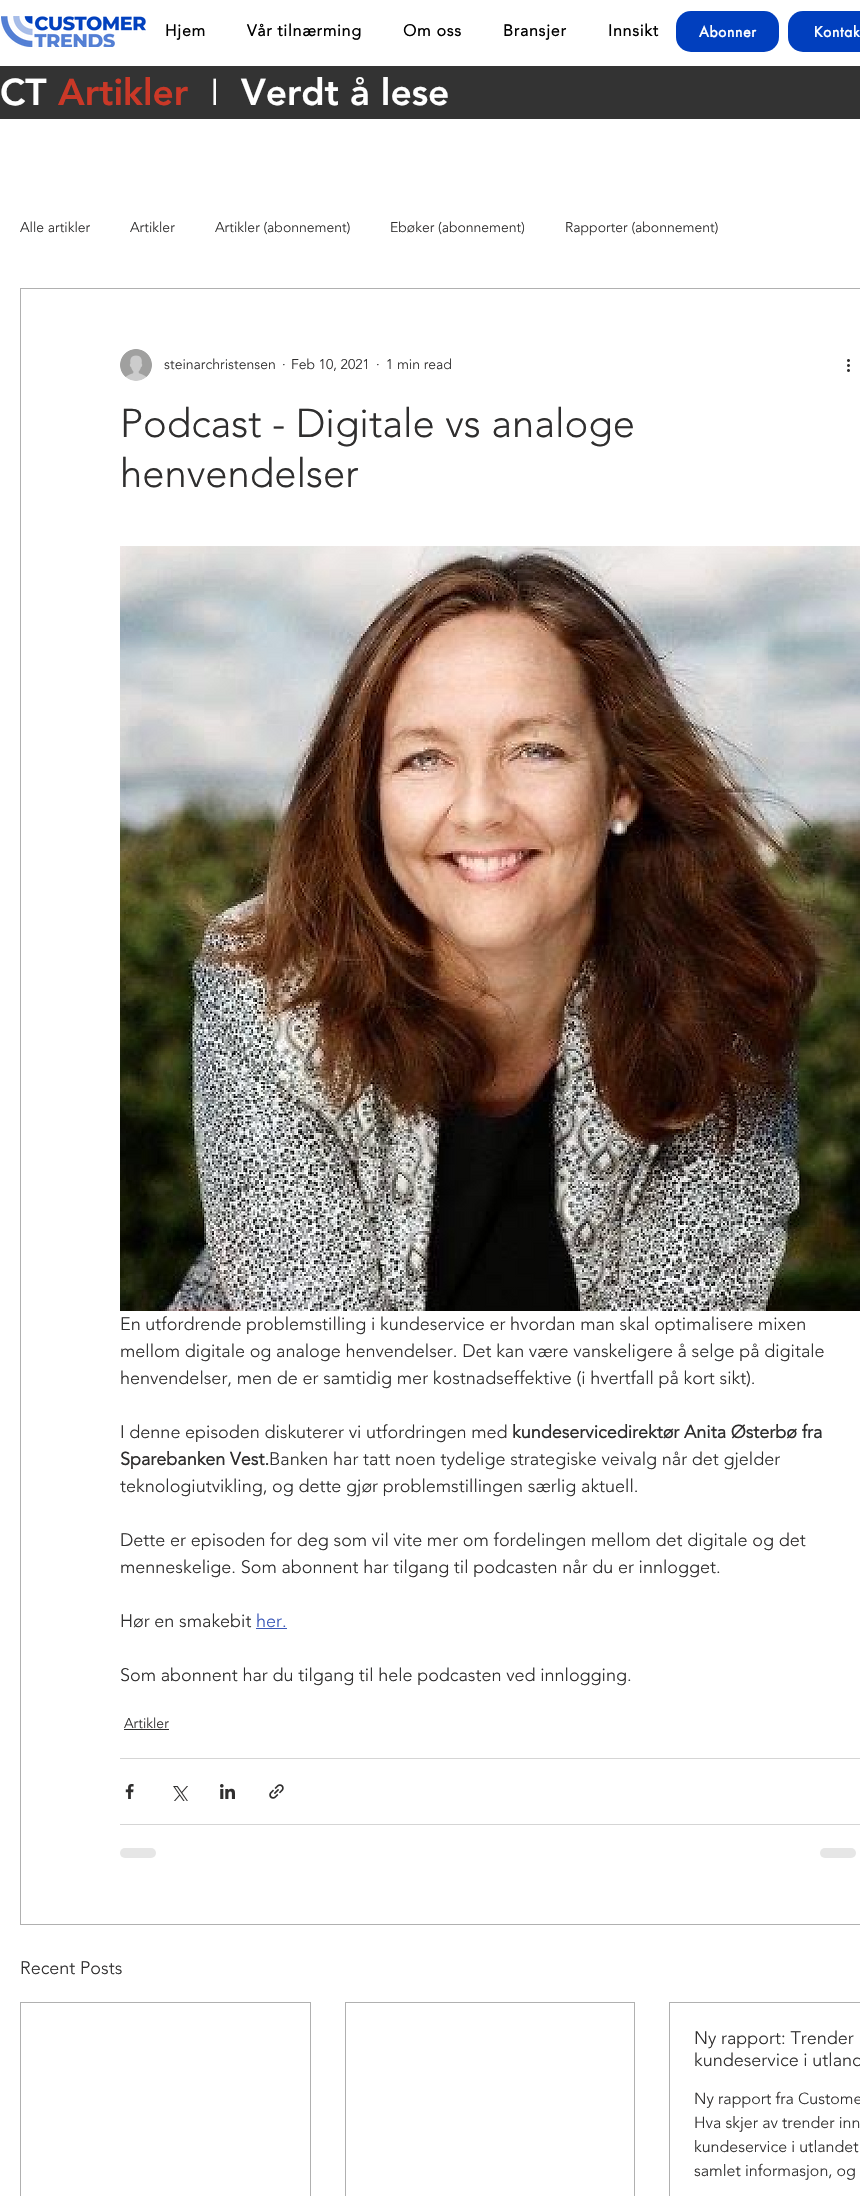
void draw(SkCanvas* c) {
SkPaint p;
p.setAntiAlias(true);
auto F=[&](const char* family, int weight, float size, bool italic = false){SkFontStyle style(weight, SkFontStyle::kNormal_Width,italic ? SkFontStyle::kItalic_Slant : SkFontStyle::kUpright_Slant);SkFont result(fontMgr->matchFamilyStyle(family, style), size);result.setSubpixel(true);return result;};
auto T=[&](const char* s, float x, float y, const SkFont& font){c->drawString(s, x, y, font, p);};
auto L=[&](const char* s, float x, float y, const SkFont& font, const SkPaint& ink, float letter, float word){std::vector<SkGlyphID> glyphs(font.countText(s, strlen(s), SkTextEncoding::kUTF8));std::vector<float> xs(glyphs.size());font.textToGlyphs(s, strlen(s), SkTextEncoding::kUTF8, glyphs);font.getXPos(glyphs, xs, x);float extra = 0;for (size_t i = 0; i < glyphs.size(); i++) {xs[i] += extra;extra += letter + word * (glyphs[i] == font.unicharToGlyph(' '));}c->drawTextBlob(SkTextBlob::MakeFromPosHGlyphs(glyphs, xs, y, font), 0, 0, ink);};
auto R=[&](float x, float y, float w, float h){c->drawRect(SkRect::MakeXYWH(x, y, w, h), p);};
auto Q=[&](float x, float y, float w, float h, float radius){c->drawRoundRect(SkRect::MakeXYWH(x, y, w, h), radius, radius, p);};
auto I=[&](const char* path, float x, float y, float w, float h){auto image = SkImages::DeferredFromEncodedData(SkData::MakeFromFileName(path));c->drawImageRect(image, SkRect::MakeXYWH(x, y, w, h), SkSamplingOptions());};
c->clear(0xffffffff);
I("1.png",1,16,145,31);
auto f1 = F("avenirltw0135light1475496",700,16);
p.setColor(0xff000000);
L("Hjem",165,36,f1,p,.75,0);
L("Vår tilnærming",247,36,f1,p,.75,0);
L("Om oss",403,36,f1,p,.75,0);
L("Bransjer",503,36,f1,p,.75,0);
L("Innsikt",608,36,f1,p,.75,0);
p.setColor(0xff013fbe);
Q(676,11,103,41,15);
auto f2 = F("futura",700,14);
p.setColor(0xffffffff);
L("Abonner",699,37,f2,p,.75,0);
p.setColor(0xff013fbe);
Q(788,11,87,41,15);
p.setColor(0xffffffff);
L("Kontak",814,37,f2,p,.75,0);
p.setColor(0xff333333);
R(0,66,860,53);
auto f3 = F("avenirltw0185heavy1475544",900,37);
p.setColor(0xffffffff);
T("CT",0,105,f3);
p.setColor(0xffca3827);
T("Artikler",58,105,f3);
auto f4 = F("avenirltw0135light1475496",300,37);
p.setColor(0xffffffff);
T("I",210,105,f4);
T("Verdt å lese",241,105,f3);
auto f5 = F("avenirltw0135light1475496",300,14);
p.setColor(0xff2f2e2e);
T("Alle artikler",20,232,f5);
T("Artikler",130,232,f5);
T("Artikler (abonnement)",215,232,f5);
T("Ebøker (abonnement)",390,232,f5);
T("Rapporter (abonnement)",565,232,f5);
p.setStroke(true);
p.setStrokeWidth(1);
p.setColor(0xffb0b0b0);
c->drawRect(SkRect::MakeXYWH(20.5,288.5,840,1636),p);
I("2.png",120,349,32,32);
p.setStroke(false);
p.setColor(0xff2f2e2e);
T("steinarchristensen",164,369,f5);
T("·",282,369,f5);
T("Feb 10, 2021",291,369,f5);
T("·",376,369,f5);
T("1 min read",386,369,f5);
I("3.png",847,359,3,13);
auto f6 = F("avenirltw0135light1475496",300,40);
T("Podcast - Digitale vs analoge",120,437,f6);
T("henvendelser",120,487,f6);
I("4.png",120,546,740,765);
auto f7 = F("avenirltw0135light1475496",300,18);
T("En utfordrende problemstilling i kundeservice er hvordan man skal optimalisere mixen",120,1330,f7);
T("mellom digitale og analoge henvendelser. Det kan være vanskeligere å selge på digitale",120,1357,f7);
T("henvendelser, men de er samtidig mer kostnadseffektive (i hvertfall på kort sikt).",120,1384,f7);
T("I denne episoden diskuterer vi utfordringen med",120,1438,f7);
auto f8 = F("avenirltw0135light1475496",700,18);
T("kundeservicedirektør Anita Østerbø fra",512,1438,f8);
T("Sparebanken Vest.",120,1465,f8);
T("Banken har tatt noen tydelige strategiske veivalg når det gjelder",269,1465,f7);
T("teknologiutvikling, og dette gjør problemstillingen særlig aktuell.",120,1492,f7);
T("Dette er episoden for deg som vil vite mer om fordelingen mellom det digitale og det",120,1546,f7);
T("menneskelige. Som abonnent har tilgang til podcasten når du er innlogget.",120,1573,f7);
T("Hør en smakebit",120,1627,f7);
p.setColor(0xff3b58b8);
T("her.",256,1627,f7);
R(256,1628,31,1);
p.setColor(0xff2f2e2e);
T("Som abonnent har du tilgang til hele podcasten ved innlogging.",120,1681,f7);
T("Artikler",124,1728,f5);
R(124,1729,45,1);
p.setColor(0xffd5d5d5);
R(120,1758,740,1);
I("5.png",125,1784,9,15);
I("6.png",173,1786,15,15);
I("7.png",220,1784,15,15);
I("8.png",269,1784,15,15);
R(120,1824,740,1);
p.setColor(0xffe6e6e6);
Q(120,1848,36,10,5);
Q(820,1848,36,10,5);
p.setColor(0xff2f2e2e);
T("Recent Posts",20,1974,f7);
p.setStroke(true);
p.setColor(0xffb0b0b0);
c->drawRect(SkRect::MakeXYWH(20.5,2002.5,290,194),p);
c->drawRect(SkRect::MakeXYWH(345.5,2002.5,289,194),p);
c->drawRect(SkRect::MakeXYWH(669.5,2002.5,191,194),p);
p.setStroke(false);
p.setColor(0xff2f2e2e);
T("Ny rapport: Trender",694,2044,f7);
T("kundeservice i utland",694,2066,f7);
auto f9 = F("avenirltw0135light1475496",300,16);
T("Ny rapport fra Custome",694,2104,f9);
T("Hva skjer av trender inn",694,2128,f9);
T("kundeservice i utlandet",694,2152,f9);
T("samlet informasjon, og",694,2176,f9);
}
